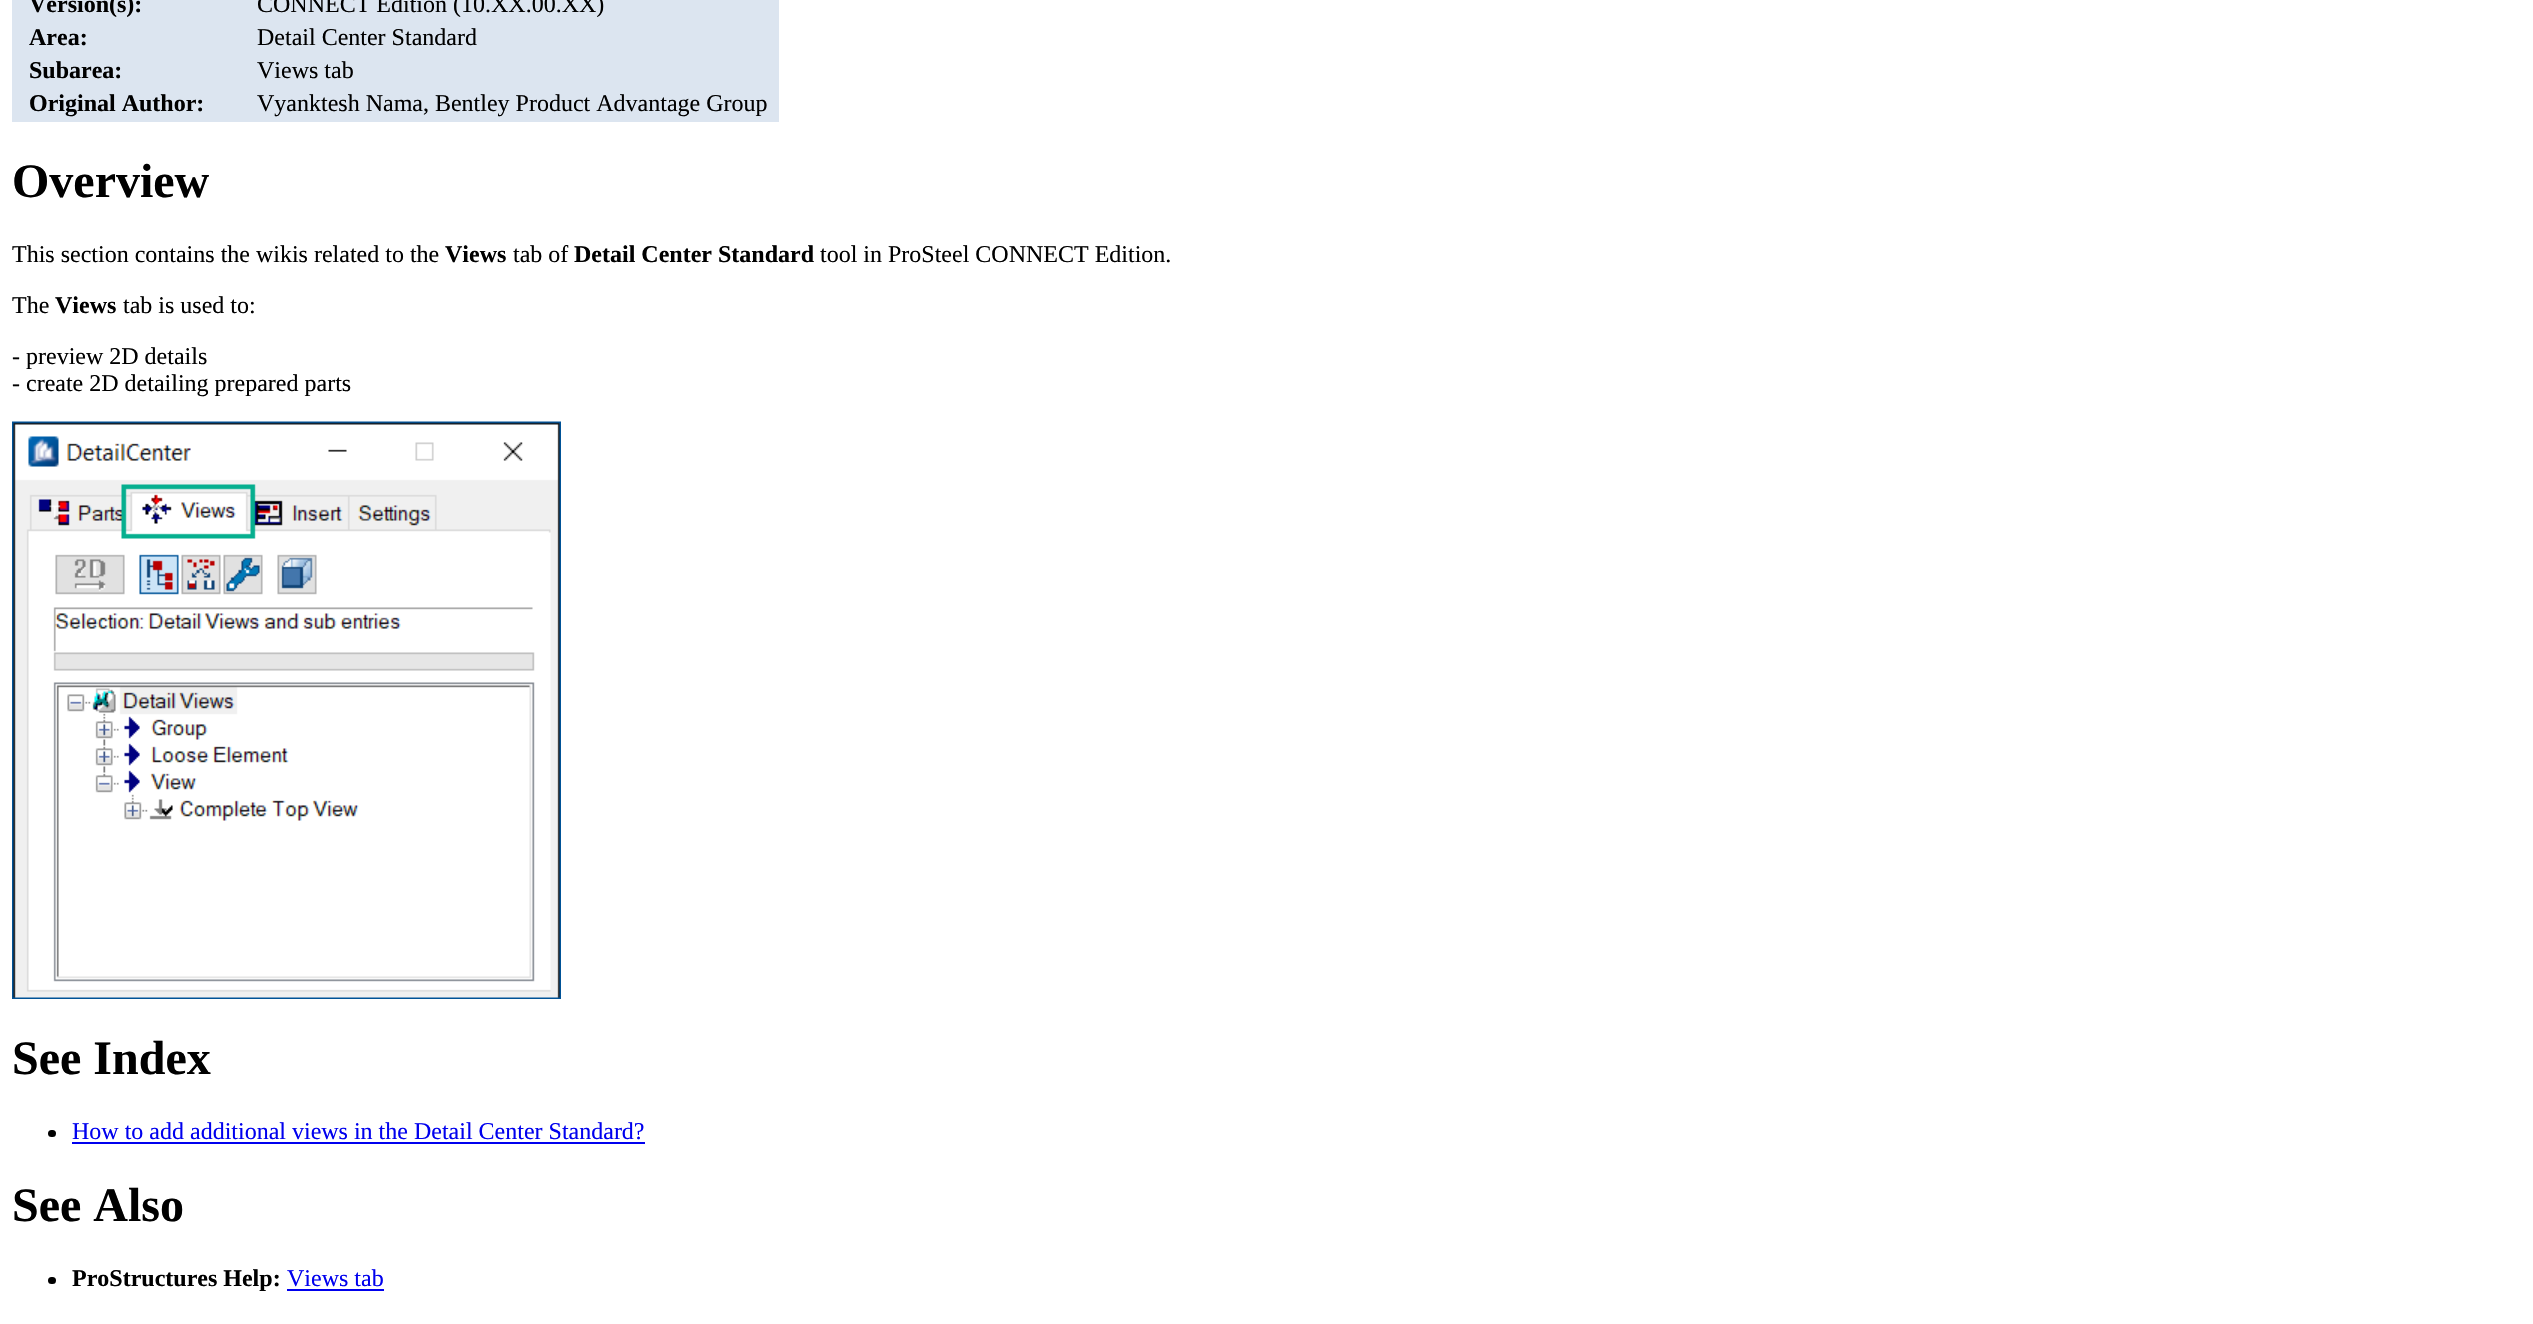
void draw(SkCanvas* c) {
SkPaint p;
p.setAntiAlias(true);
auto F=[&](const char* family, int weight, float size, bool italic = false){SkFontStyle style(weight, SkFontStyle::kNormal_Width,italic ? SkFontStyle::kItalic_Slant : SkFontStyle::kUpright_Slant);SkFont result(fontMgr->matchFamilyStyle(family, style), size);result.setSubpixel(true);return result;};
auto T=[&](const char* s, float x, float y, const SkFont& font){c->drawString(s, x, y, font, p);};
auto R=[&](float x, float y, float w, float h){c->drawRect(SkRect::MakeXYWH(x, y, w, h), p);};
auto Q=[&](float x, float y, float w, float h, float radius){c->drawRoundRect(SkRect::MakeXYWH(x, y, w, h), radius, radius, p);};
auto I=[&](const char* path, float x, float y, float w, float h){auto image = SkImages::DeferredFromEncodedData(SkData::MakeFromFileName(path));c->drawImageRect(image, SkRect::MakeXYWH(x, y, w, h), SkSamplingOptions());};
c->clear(0xffffffff);
p.setColor(0xffdce5f0);
R(12,0,767,122);
auto f1 = F("Liberation Serif",700,24);
p.setColor(0xff000000);
T("Version(s):",29,12,f1);
auto f2 = F("Liberation Serif",400,24);
T("CONNECT Edition (10.XX.00.XX)",257,12,f2);
T("Area:",29,45,f1);
T("Detail Center Standard",257,45,f2);
T("Subarea:",29,78,f1);
T("Views tab",257,78,f2);
T("Original Author:",29,111,f1);
T("Vyanktesh Nama, Bentley Product Advantage Group",257,111,f2);
auto f3 = F("Liberation Serif",700,48);
T("Overview",12,197,f3);
T("This section contains the wikis related to the",12,262,f2);
T("Views",445,262,f1);
T("tab of",513,262,f2);
T("Detail Center Standard",574,262,f1);
T("tool in ProSteel CONNECT Edition.",820,262,f2);
T("The",12,313,f2);
T("Views",55,313,f1);
T("tab is used to:",123,313,f2);
T("- preview 2D details",12,364,f2);
T("- create 2D detailing prepared parts",12,391,f2);
I("1.png",12,421,549,578);
T("See Index",12,1074,f3);
Q(48,1130,8,7,3.5);
p.setColor(0xff0000ee);
T("How to add additional views in the Detail Center Standard?",72,1139,f2);
R(72,1142,573,2);
p.setColor(0xff000000);
T("See Also",12,1221,f3);
Q(48,1277,8,7,3.5);
T("ProStructures Help:",72,1286,f1);
p.setColor(0xff0000ee);
T("Views tab",287,1286,f2);
R(287,1289,97,2);
}
